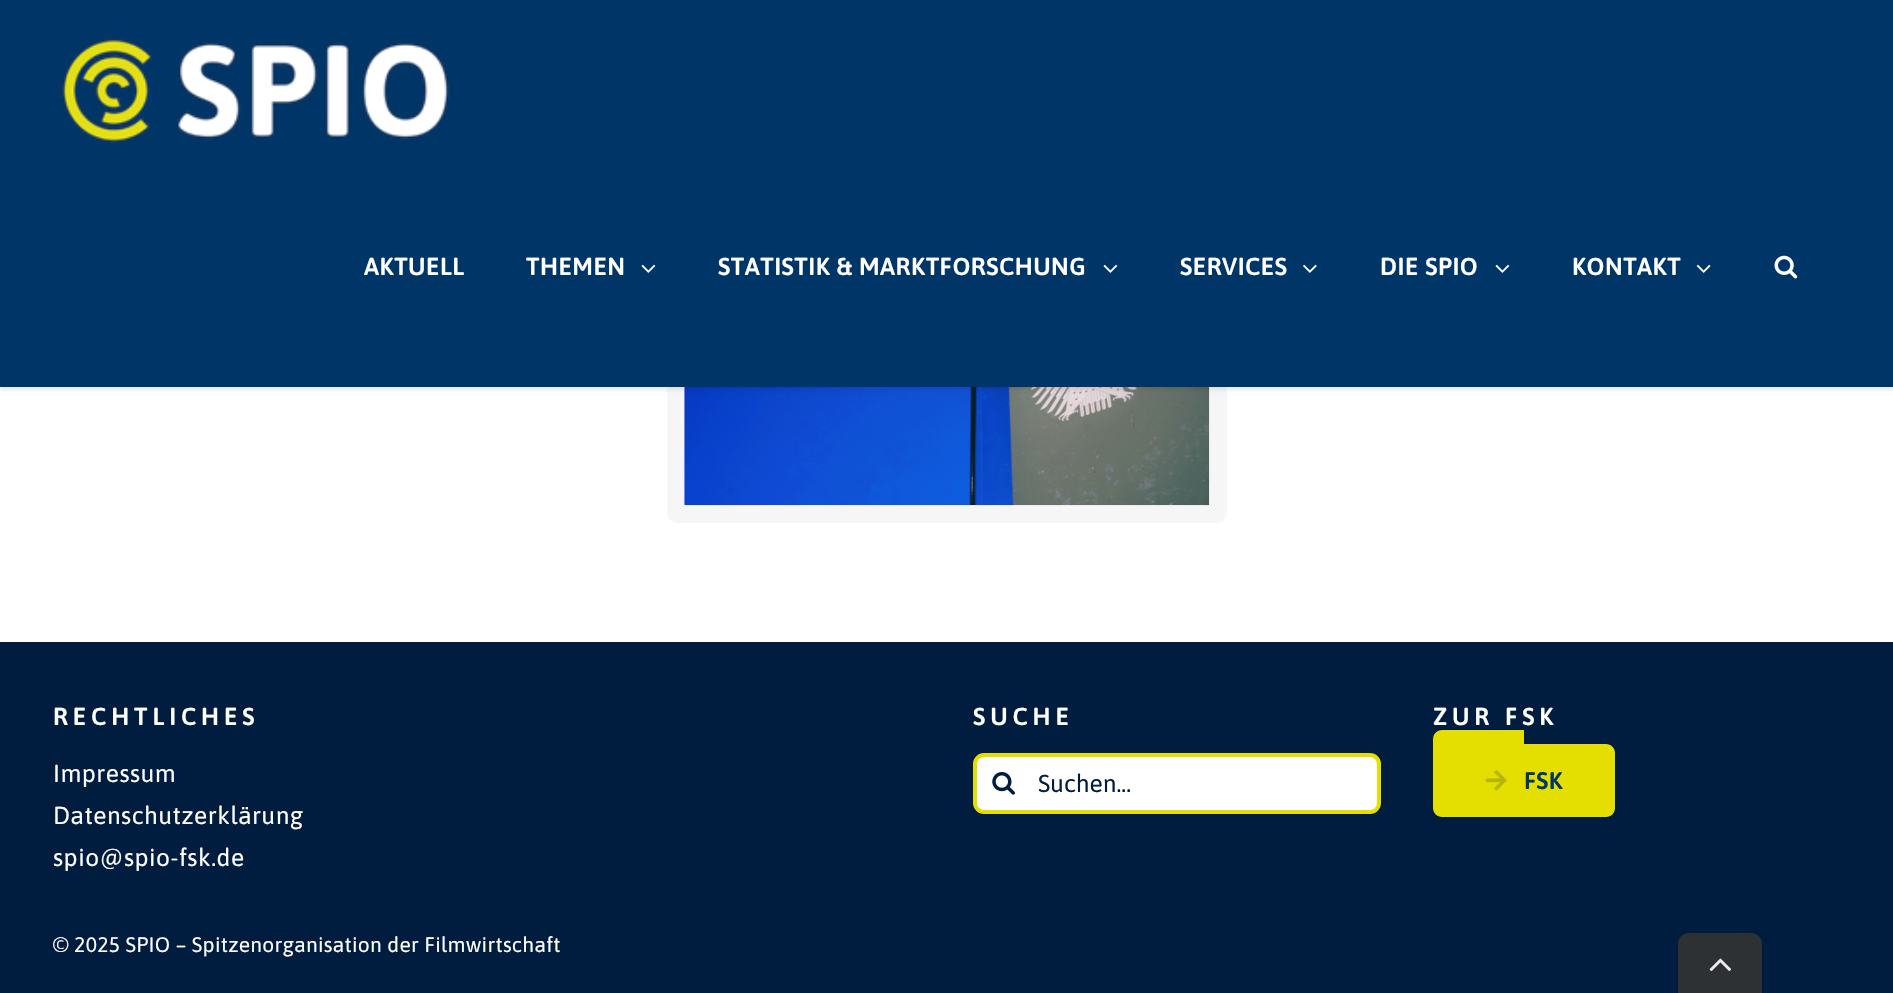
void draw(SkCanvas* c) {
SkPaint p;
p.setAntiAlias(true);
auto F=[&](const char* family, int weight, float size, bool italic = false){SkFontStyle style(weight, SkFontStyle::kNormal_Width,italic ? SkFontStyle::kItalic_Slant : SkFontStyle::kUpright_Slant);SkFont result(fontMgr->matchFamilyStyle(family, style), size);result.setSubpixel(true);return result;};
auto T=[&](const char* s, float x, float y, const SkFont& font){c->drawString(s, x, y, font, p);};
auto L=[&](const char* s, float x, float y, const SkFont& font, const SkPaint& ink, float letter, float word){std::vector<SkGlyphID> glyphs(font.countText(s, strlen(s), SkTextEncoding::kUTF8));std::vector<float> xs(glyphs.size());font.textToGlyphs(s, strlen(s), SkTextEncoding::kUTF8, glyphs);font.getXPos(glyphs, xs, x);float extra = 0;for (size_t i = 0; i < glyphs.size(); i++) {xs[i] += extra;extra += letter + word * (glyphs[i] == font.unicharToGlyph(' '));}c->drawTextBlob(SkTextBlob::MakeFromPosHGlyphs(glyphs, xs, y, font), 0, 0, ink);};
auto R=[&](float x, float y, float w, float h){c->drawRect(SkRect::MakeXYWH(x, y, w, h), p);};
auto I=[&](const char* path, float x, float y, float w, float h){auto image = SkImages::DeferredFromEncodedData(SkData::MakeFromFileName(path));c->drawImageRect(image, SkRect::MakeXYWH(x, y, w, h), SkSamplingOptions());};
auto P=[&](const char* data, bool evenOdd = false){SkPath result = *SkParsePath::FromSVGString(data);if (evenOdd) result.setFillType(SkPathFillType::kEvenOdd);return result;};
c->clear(0xffffffff);
p.setStroke(true);
p.setStrokeWidth(18);
p.setColor(0xfff6f6f6);
c->drawRoundRect(SkRect::MakeXYWH(676,147,542,367),2,2,p);
I("1.png",684,387,526,119);
p.setStroke(false);
p.setColor(0x1f000000);
p.setMaskFilter(SkMaskFilter::MakeBlur(kNormal_SkBlurStyle, 2.5));
c->drawRect(SkRect::MakeXYWH(0,2,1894,387),p);
p.setMaskFilter(nullptr);
p.setColor(0xff003667);
R(0,0,1893,387);
I("2.png",61,38,389,106);
auto f1 = F("Asap",600,24.5);
p.setColor(0xffffffff);
L("AKTUELL",364,275,f1,p,.5,0);
L("THEMEN",526,275,f1,p,.5,0);
I("3.png",641,264,15,9);
L("STATISTIK & MARKTFORSCHUNG",718,275,f1,p,.5,0);
I("3.png",1103,264,15,9);
L("SERVICES",1180,275,f1,p,.5,0);
I("4.png",1303,264,14,9);
L("DIE SPIO",1380,275,f1,p,.5,0);
I("3.png",1495,264,15,9);
L("KONTAKT",1572,275,f1,p,.5,0);
I("5.png",1696,264,15,9);
I("6.png",1774,255,24,24);
p.setColor(0xff001c3e);
R(0,642,1893,351);
p.setColor(0xffffffff);
L("RECHTLICHES",53,725,f1,p,4.9,0);
auto f2 = F("Asap",400,24.5);
L("Impressum",53,782,f2,p,.5,0);
L("Datenschutzerklärung",53,824,f2,p,.5,0);
L("spio@spio-fsk.de",53,866,f2,p,.5,0);
L("SUCHE",973,725,f1,p,4.9,0);
c->drawRoundRect(SkRect::MakeXYWH(975,755,404,57),9,9,p);
p.setStroke(true);
p.setStrokeWidth(4);
p.setColor(0xffe4df00);
c->drawRoundRect(SkRect::MakeXYWH(975,755,404,57),9,9,p);
I("7.png",992,772,23,23);
p.setStroke(false);
p.setColor(0xff001c3e);
T("Suchen...",1038,792,f2);
p.setColor(0xffffffff);
L("ZUR FSK",1433,725,f1,p,4.9,0);
p.setColor(0xffe4df00);
c->drawPath(P("M1442 730h82v87h-82c-5 0-9-4-9-9v-69c0-5 4-9 9-9z"),p);
c->drawPath(P("M1524 744h82c5 0 9 4 9 9v55c0 5-4 9-9 9h-82z"),p);
I("8.png",1485,770,22,21);
auto f3 = F("Asap",600,24);
p.setColor(0xff003667);
L("FSK",1524,789,f3,p,.28,0);
auto f4 = F("Asap",400,21);
p.setColor(0xffffffff);
L("© 2025 SPIO – Spitzenorganisation der Filmwirtschaft",53,952,f4,p,.28,0);
p.setColor(0xff2e3134);
c->drawPath(P("M1689 933h62c6 0 11 5 11 11v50h-84v-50c0-6 5-11 11-11z"),p);
I("9.png",1709,958,22,13);
}
